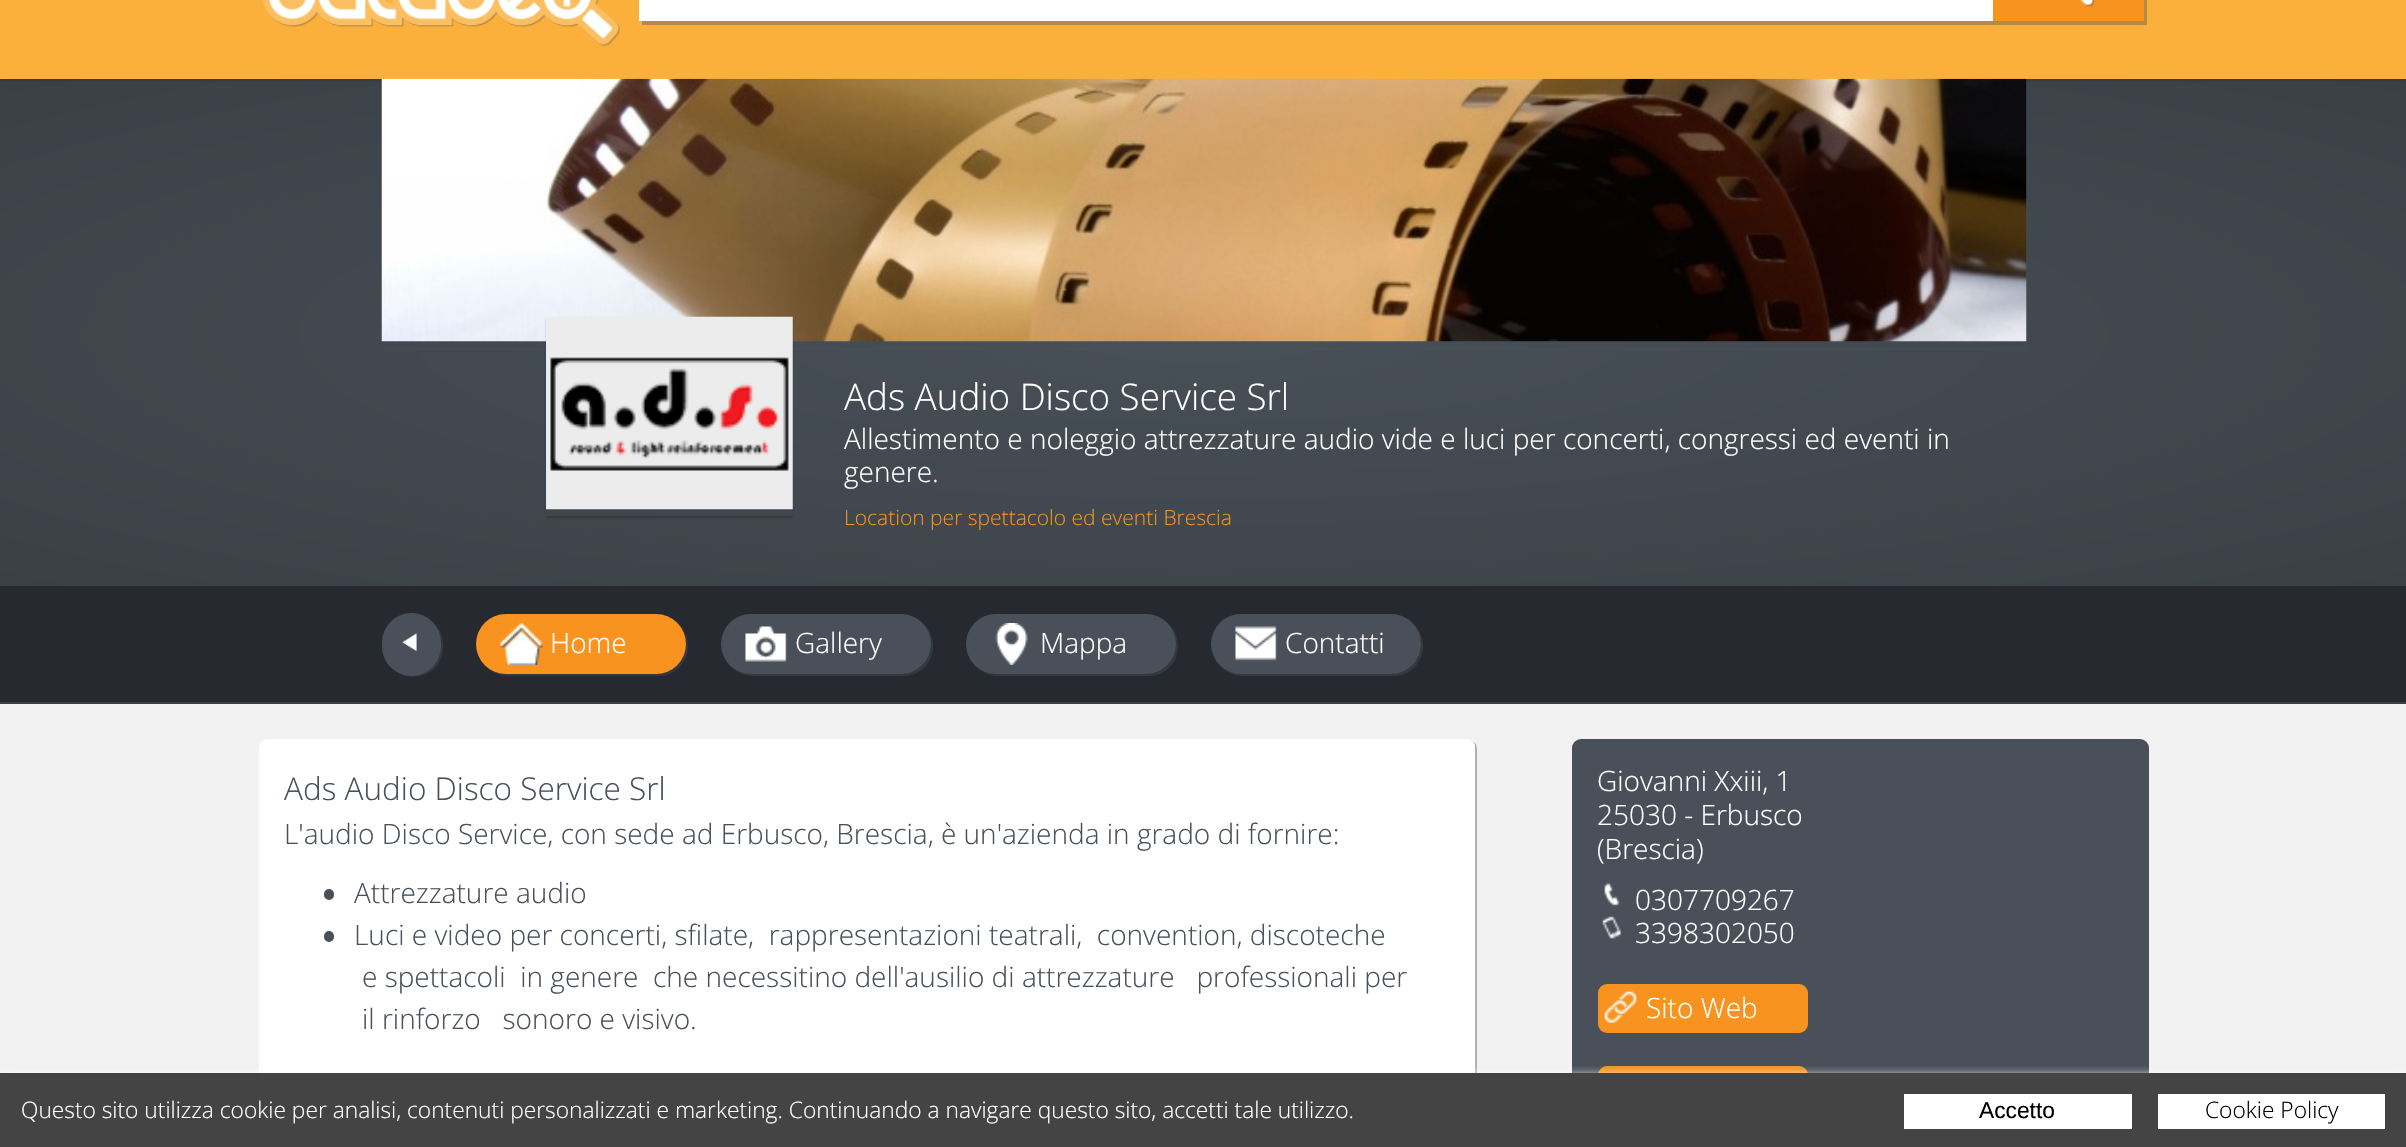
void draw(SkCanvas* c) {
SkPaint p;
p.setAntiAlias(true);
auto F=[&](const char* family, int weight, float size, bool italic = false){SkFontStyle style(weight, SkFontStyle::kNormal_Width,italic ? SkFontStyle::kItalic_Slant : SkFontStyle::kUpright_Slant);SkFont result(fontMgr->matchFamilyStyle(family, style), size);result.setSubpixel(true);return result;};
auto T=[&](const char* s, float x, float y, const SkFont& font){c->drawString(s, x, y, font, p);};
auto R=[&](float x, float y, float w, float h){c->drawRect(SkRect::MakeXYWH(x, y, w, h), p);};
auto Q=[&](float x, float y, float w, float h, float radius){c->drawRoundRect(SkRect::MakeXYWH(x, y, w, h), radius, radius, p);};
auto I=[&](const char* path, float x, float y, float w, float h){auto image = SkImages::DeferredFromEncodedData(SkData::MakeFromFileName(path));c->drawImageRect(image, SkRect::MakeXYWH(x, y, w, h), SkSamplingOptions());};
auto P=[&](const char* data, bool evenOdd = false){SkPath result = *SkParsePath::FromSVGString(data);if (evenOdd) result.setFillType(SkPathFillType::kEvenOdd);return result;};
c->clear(0xfff2f2f2);
{
const SkColor colors[] = {0xff485058,0xff3a4046};
const float stops[] = {0,1};
SkMatrix m = SkMatrix::Translate(1203,333).preScale(1701,359);
p.setShader(SkGradientShader::MakeRadial({0, 0}, 1, colors, stops, 2, SkTileMode::kClamp, 0, &m));
p.setAlpha(255);
}
R(0,79,2406,507);
p.setShader(nullptr);
p.setColor(0x1a000000);
p.setMaskFilter(SkMaskFilter::MakeBlur(kNormal_SkBlurStyle, 1));
c->drawRect(SkRect::MakeXYWH(0,-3,2406,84),p);
p.setMaskFilter(nullptr);
p.setColor(0xfffbb03b);
R(0,0,2406,79);
I("1.png",262,0,358,46);
p.setColor(0xffb48a47);
c->drawPath(P("M642 21v4h1505v-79h-3v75z"),p);
p.setColor(0xffffffff);
R(639,0,1354,21);
p.setColor(0xfff7931e);
R(1993,0,151,21);
I("2.png",2079,0,16,7);
c->save();
c->clipRect(SkRect::MakeXYWH(382,79,1645,507));
p.setColor(0x66495059);
c->drawPath(P("M383 348v2h1645v-269h-2v267z"),p);
c->restore();
I("3.png",381,78,1646,264);
c->save();
c->clipPath(P("M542 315h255v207h-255zm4 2h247v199h-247z",true),true);
p.setColor(0x33000000);
p.setMaskFilter(SkMaskFilter::MakeBlur(kNormal_SkBlurStyle, 1));
c->drawRect(SkRect::MakeXYWH(546,319,247,199),p);
p.setMaskFilter(nullptr);
c->restore();
I("4.png",546,316,247,194);
auto f1 = F("Open Sans",300,36.75);
p.setColor(0xffffffff);
T("Ads Audio Disco Service Srl",844,410,f1);
auto f2 = F("Open Sans",300,28);
T("Allestimento e noleggio attrezzature audio vide e luci per concerti, congressi ed eventi in",844,449,f2);
T("genere.",844,482,f2);
auto f3 = F("Open Sans",300,21);
p.setColor(0xfff7931e);
T("Location per spettacolo ed eventi Brescia",844,525,f3);
p.setColor(0xff262a30);
R(0,586,2406,116);
p.setColor(0xff3a4047);
R(0,702,2406,2);
p.setColor(0xff343940);
c->drawPath(P("M392 668c13 13 36 11 46-4c9-14 6-34-7-44c12 10 13 30 5 42c-10 15-31 18-44 6z"),p);
p.setColor(0xff495059);
Q(382,613,59,63,29.5);
I("5.png",402,633,15,18);
p.setColor(0xff343940);
c->drawPath(P("M485 666c6 6 14 10 23 10h150c17 0 30-13 30-30c0-9-4-17-10-23c5 6 8 13 8 21c0 16-13 30-30 30h-150c-8 0-15-3-21-8z"),p);
p.setColor(0xfff7931e);
Q(476,614,210,60,30);
I("6.png",500,623,43,42);
p.setColor(0xffffffff);
T("Home",550,653,f2);
p.setColor(0xff343940);
c->drawPath(P("M730 666c6 6 14 10 23 10h150c17 0 30-13 30-30c0-9-4-17-10-23c5 6 8 13 8 21c0 16-13 30-30 30h-150c-8 0-15-3-21-8z"),p);
p.setColor(0xff495059);
Q(721,614,210,60,30);
I("7.png",745,626,42,36);
p.setColor(0xffffffff);
T("Gallery",795,653,f2);
p.setColor(0xff343940);
c->drawPath(P("M975 666c6 6 14 10 23 10h150c17 0 30-13 30-30c0-9-4-17-10-23c5 6 8 13 8 21c0 16-13 30-30 30h-150c-8 0-15-3-21-8z"),p);
p.setColor(0xff495059);
Q(966,614,210,60,30);
I("8.png",995,623,33,42);
p.setColor(0xffffffff);
T("Mappa",1040,653,f2);
p.setColor(0xff343940);
c->drawPath(P("M1220 666c6 6 14 10 23 10h150c17 0 30-13 30-30c0-9-4-17-10-23c5 6 8 13 8 21c0 16-13 30-30 30h-150c-8 0-15-3-21-8z"),p);
p.setColor(0xff495059);
Q(1211,614,210,60,30);
I("9.png",1235,626,42,35);
p.setColor(0xffffffff);
T("Contatti",1285,653,f2);
p.setColor(0xffaeb1b5);
c->drawPath(P("M263 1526c1 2 4 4 7 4h1198c5 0 9-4 9-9v-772c0-3-1-6-4-7c2 1 2 3 2 5v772c0 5-4 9-9 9h-1198c-2 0-4-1-5-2z"),p);
p.setColor(0xffffffff);
Q(259,739,1216,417,9);
auto f4 = F("Open Sans",300,31.5);
p.setColor(0xff495059);
T("Ads Audio Disco Service Srl",284,800,f4);
T("L'audio Disco Service, con sede ad Erbusco, Brescia, è un'azienda in grado di fornire:",284,844,f2);
Q(324,889,10,11,5);
T("Attrezzature audio",354,903,f2);
Q(324,931,10,11,5);
T("Luci e video per concerti, sfilate,  rappresentazioni teatrali,  convention, discoteche",354,945,f2);
T("e spettacoli  in genere  che necessitino dell'ausilio di attrezzature   professionali per",362,987,f2);
T("il rinforzo   sonoro e visivo.",362,1029,f2);
Q(1572,739,577,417,9);
p.setColor(0xffffffff);
T("Giovanni Xxiii, 1",1597,791,f2);
T("25030 - Erbusco",1597,825,f2);
T("(Brescia)",1597,859,f2);
I("10.png",1604,883,16,23);
T("0307709267",1635,910,f2);
I("11.png",1602,916,19,23);
T("3398302050",1635,943,f2);
p.setColor(0xfff7931e);
Q(1598,984,210,49,9);
I("12.png",1604,991,33,32);
p.setColor(0xffffffff);
T("Sito Web",1646,1018,f2);
p.setColor(0xfff7931e);
Q(1598,1066,210,47,9);
p.setColor(0xff444444);
R(0,1073,2406,74);
c->save();
c->clipRect(SkRect::MakeXYWH(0,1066,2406,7));
p.setColor(0xffffffff);
p.setMaskFilter(SkMaskFilter::MakeBlur(kNormal_SkBlurStyle, 4.5));
c->drawRect(SkRect::MakeXYWH(0,1075,2406,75),p);
p.setMaskFilter(nullptr);
c->restore();
auto f5 = F("Open Sans",300,22.75);
T("Questo sito utilizza cookie per analisi, contenuti personalizzati e marketing. Continuando a navigare questo sito, accetti tale utilizzo.",21,1118,f5);
R(1904,1094,228,35);
auto f6 = F("Liberation Sans",400,22.75);
p.setColor(0xff000000);
T("Accetto",1979,1118,f6);
p.setColor(0xffffffff);
R(2158,1094,227,35);
p.setColor(0xff000000);
T("Cookie Policy",2205,1118,f5);
}
